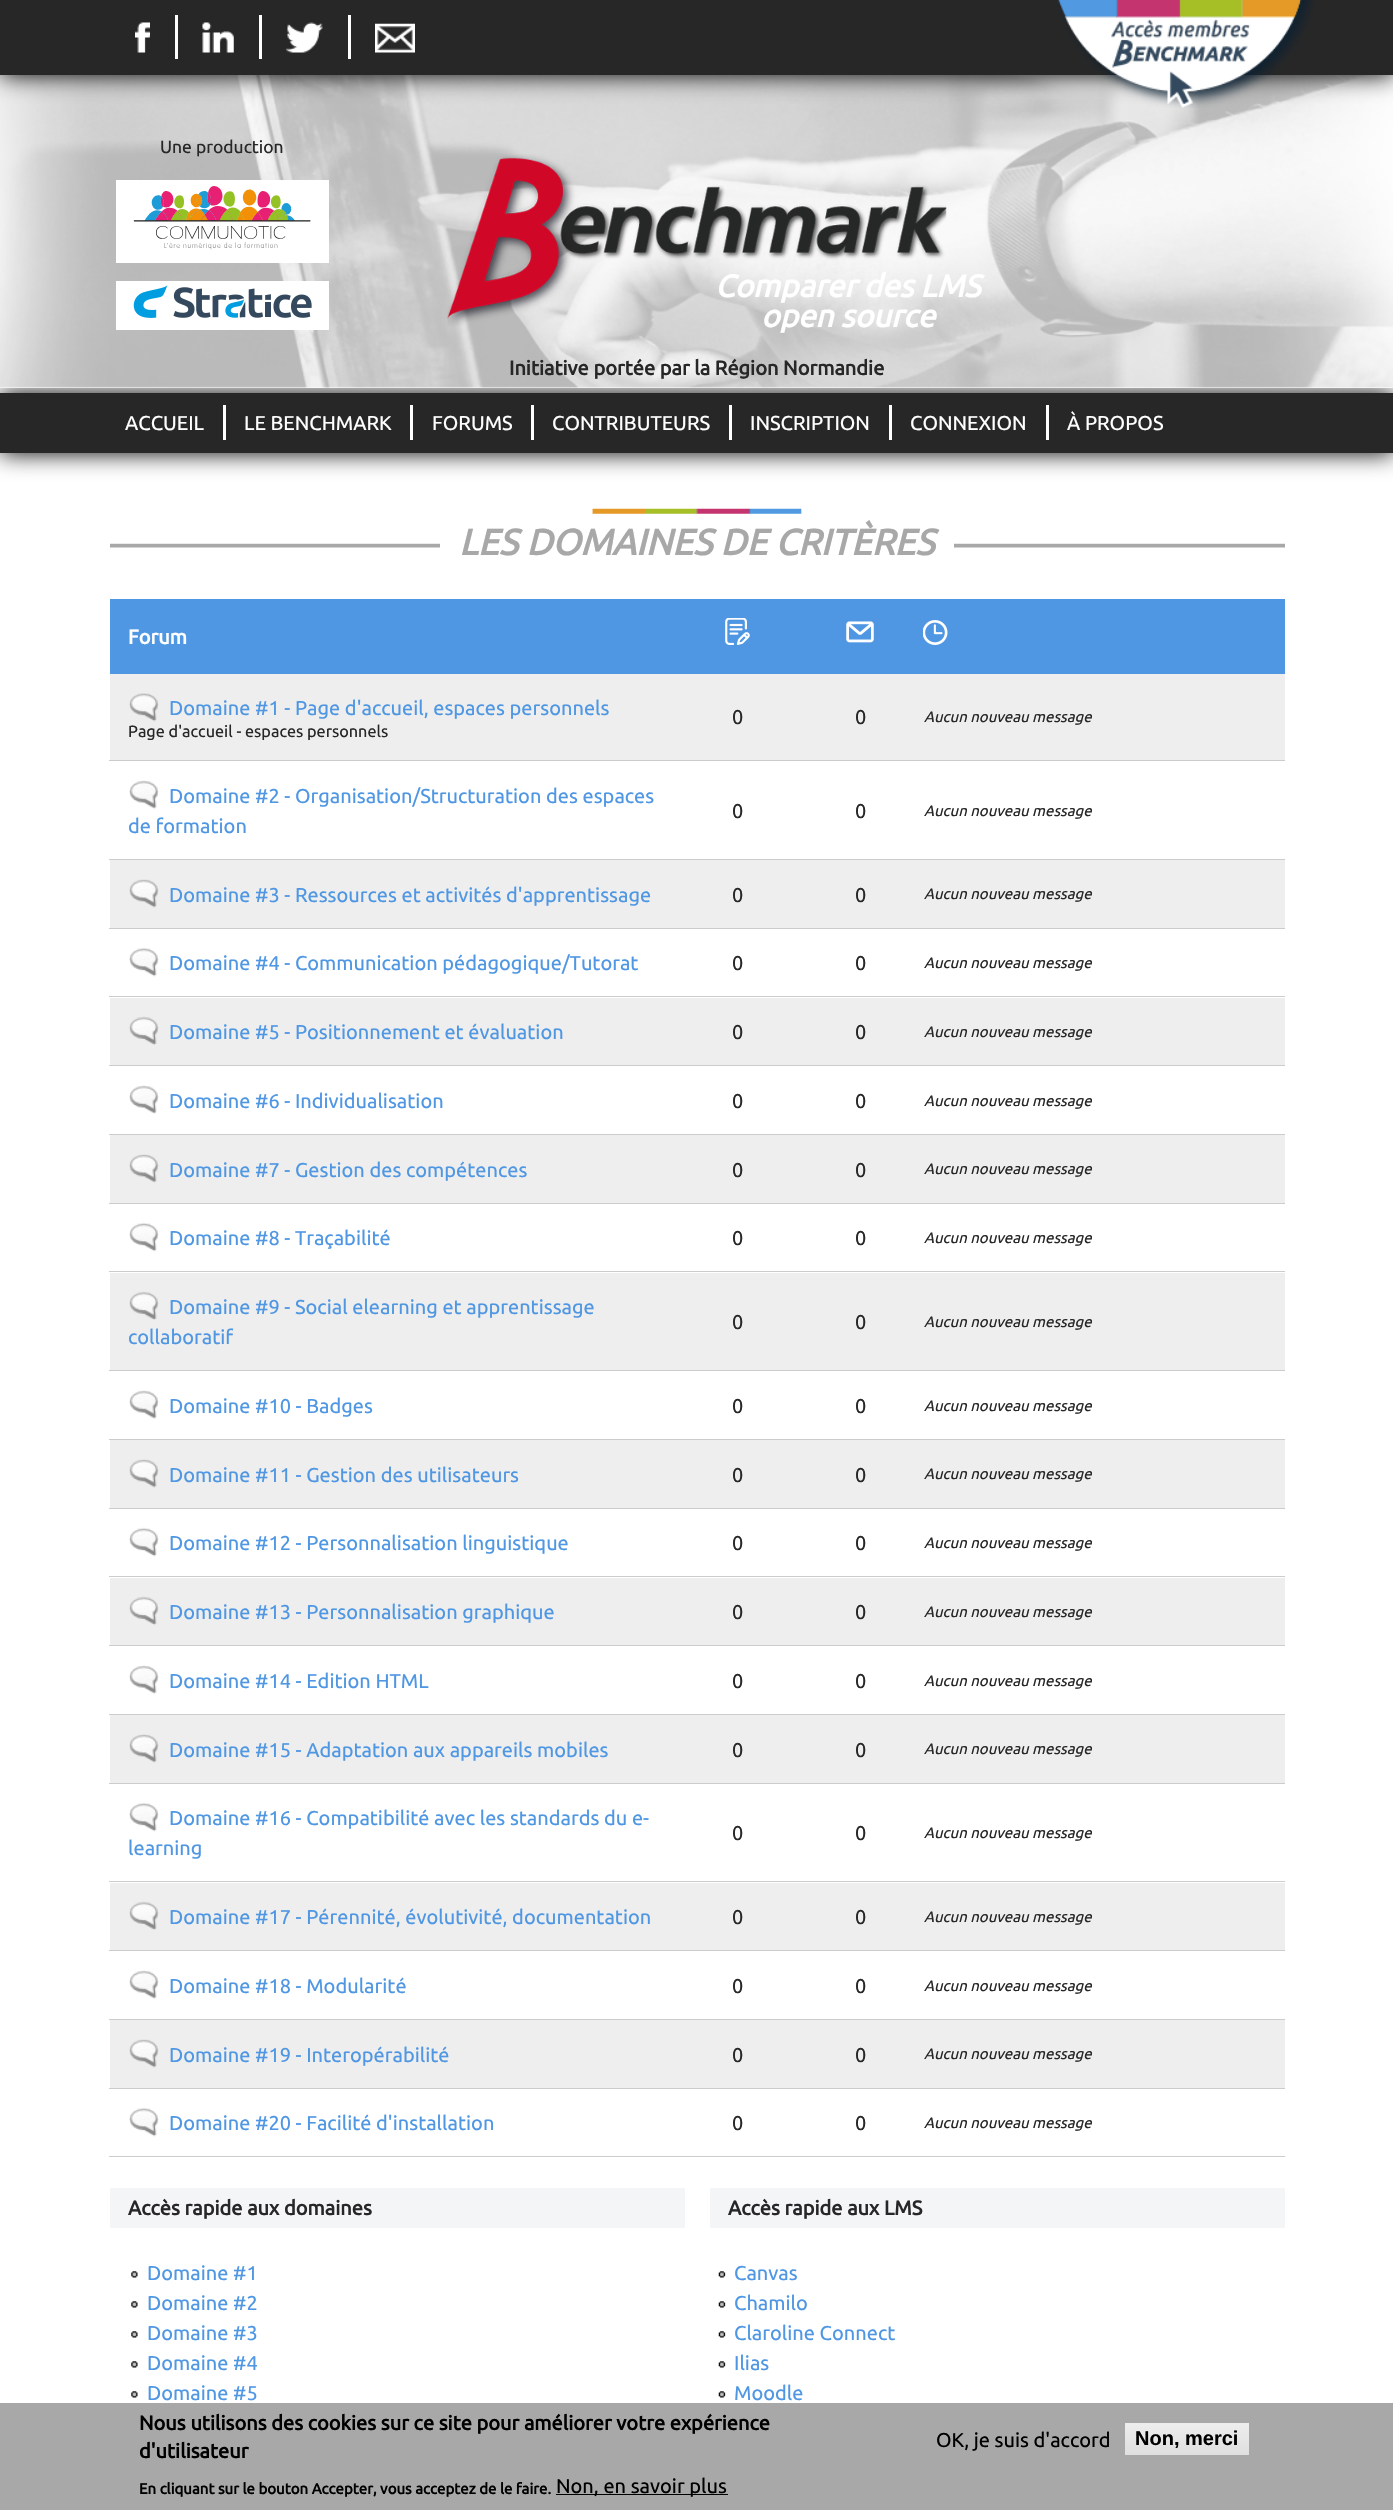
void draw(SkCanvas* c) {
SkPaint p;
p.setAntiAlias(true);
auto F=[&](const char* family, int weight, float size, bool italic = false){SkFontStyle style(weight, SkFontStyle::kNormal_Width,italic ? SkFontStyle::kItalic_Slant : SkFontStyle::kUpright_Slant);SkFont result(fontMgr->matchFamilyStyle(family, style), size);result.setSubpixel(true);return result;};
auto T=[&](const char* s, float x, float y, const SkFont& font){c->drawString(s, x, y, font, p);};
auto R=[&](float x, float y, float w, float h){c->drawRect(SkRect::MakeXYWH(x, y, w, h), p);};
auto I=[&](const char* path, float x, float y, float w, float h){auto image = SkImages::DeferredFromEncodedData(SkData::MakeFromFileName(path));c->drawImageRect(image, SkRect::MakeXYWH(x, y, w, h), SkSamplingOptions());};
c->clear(0xffffffff);
p.setColor(0xff000000);
p.setMaskFilter(SkMaskFilter::MakeBlur(kNormal_SkBlurStyle, 12.5));
c->drawRect(SkRect::MakeXYWH(0,393,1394,60),p);
p.setMaskFilter(nullptr);
p.setColor(0xffffffff);
R(0,364,1393,24);
I("6.png",0,75,1393,313);
p.setColor(0xff000000);
p.setMaskFilter(SkMaskFilter::MakeBlur(kNormal_SkBlurStyle, 12.5));
c->drawRect(SkRect::MakeXYWH(0,0,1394,75),p);
p.setMaskFilter(nullptr);
p.setColor(0xff272727);
R(0,0,1393,75);
p.setColor(0xffffffff);
R(175,15,3,44);
I("1.png",135,22,15,31);
R(259,15,3,44);
I("2.png",202,22,32,31);
R(348,15,3,44);
I("3.png",286,22,37,31);
I("4.png",375,23,40,30);
I("5.png",1058,0,256,108);
auto f1 = F("Ubuntu",400,17.5);
p.setColor(0xff272727);
T("Une production",160,153,f1);
p.setColor(0xffffffff);
R(116,180,213,83);
I("7.png",133,186,178,64);
R(116,281,213,49);
I("8.png",133,285,179,33);
I("9.png",447,154,500,172);
auto f2 = F("Ubuntu",700,31.25,true);
T("Comparer des LMS",715,297,f2);
T("open source",761,327,f2);
auto f3 = F("Ubuntu",700,20);
p.setColor(0xff272727);
T("Initiative portée par la Région Normandie",509,375,f3);
R(0,393,1393,60);
p.setColor(0xffffffff);
R(223,405,3,35);
auto f4 = F("Ubuntu",400,20);
T("ACCUEIL",125,430,f4);
R(410,405,3,35);
T("LE BENCHMARK",244,430,f4);
R(531,405,3,35);
T("FORUMS",432,430,f4);
R(729,405,3,35);
T("CONTRIBUTEURS",552,430,f4);
R(889,405,3,35);
T("INSCRIPTION",750,430,f4);
R(1046,405,3,35);
T("CONNEXION",910,430,f4);
T("À PROPOS",1067,430,f4);
I("10.png",110,508,1175,40);
R(440,543,514,5);
auto f5 = F("Ubuntu",700,36.25,true);
p.setColor(0xffa8a8a8);
T("LES DOMAINES DE CRITÈRES",459,555,f5);
p.setColor(0xff4f97e3);
R(110,599,1175,75);
p.setColor(0xffffffff);
T("Forum",128,644,f3);
I("11.png",725,618,25,27);
I("12.png",846,621,28,22);
I("13.png",923,620,25,25);
p.setColor(0xffeeeeee);
R(110,674,1175,86);
p.setColor(0xffcccccc);
R(109,760,1176,1);
I("14.png",129,693,30,29);
p.setColor(0xff4f97e3);
T("Domaine #1 - Page d'accueil, espaces personnels",169,715,f4);
auto f6 = F("Ubuntu",400,16.25);
p.setColor(0xff272727);
T("Page d'accueil - espaces personnels",128,737,f6);
T("0",732,724,f4);
T("0",855,724,f4);
auto f7 = F("Ubuntu",400,15,true);
T("Aucun nouveau message",924,722,f7);
p.setColor(0xffcccccc);
R(109,859,1176,1);
I("15.png",129,780,30,29);
p.setColor(0xff4f97e3);
T("Domaine #2 - Organisation/Structuration des espaces",169,803,f4);
T("de formation",128,833,f4);
p.setColor(0xff272727);
T("0",732,818,f4);
T("0",855,818,f4);
T("Aucun nouveau message",924,816,f7);
p.setColor(0xffeeeeee);
R(110,860,1175,68);
p.setColor(0xffcccccc);
R(109,928,1176,1);
I("16.png",129,879,30,29);
p.setColor(0xff4f97e3);
T("Domaine #3 - Ressources et activités d'apprentissage",169,902,f4);
p.setColor(0xff272727);
T("0",732,902,f4);
T("0",855,902,f4);
T("Aucun nouveau message",924,899,f7);
p.setColor(0xffcccccc);
R(109,996,1176,1);
I("17.png",129,947,30,30);
p.setColor(0xff4f97e3);
T("Domaine #4 - Communication pédagogique/Tutorat",169,970,f4);
p.setColor(0xff272727);
T("0",732,970,f4);
T("0",855,970,f4);
T("Aucun nouveau message",924,968,f7);
p.setColor(0xffeeeeee);
R(110,998,1175,67);
p.setColor(0xffcccccc);
R(109,1065,1176,1);
I("18.png",129,1016,30,29);
p.setColor(0xff4f97e3);
T("Domaine #5 - Positionnement et évaluation",169,1039,f4);
p.setColor(0xff272727);
T("0",732,1039,f4);
T("0",855,1039,f4);
T("Aucun nouveau message",924,1037,f7);
p.setColor(0xffcccccc);
R(109,1134,1176,1);
I("19.png",129,1085,30,29);
p.setColor(0xff4f97e3);
T("Domaine #6 - Individualisation",169,1108,f4);
p.setColor(0xff272727);
T("0",732,1108,f4);
T("0",855,1108,f4);
T("Aucun nouveau message",924,1106,f7);
p.setColor(0xffeeeeee);
R(110,1135,1175,68);
p.setColor(0xffcccccc);
R(109,1203,1176,1);
I("20.png",129,1154,30,29);
p.setColor(0xff4f97e3);
T("Domaine #7 - Gestion des compétences",169,1177,f4);
p.setColor(0xff272727);
T("0",732,1177,f4);
T("0",855,1177,f4);
T("Aucun nouveau message",924,1174,f7);
p.setColor(0xffcccccc);
R(109,1271,1176,1);
I("17.png",129,1222,30,30);
p.setColor(0xff4f97e3);
T("Domaine #8 - Traçabilité",169,1245,f4);
p.setColor(0xff272727);
T("0",732,1245,f4);
T("0",855,1245,f4);
T("Aucun nouveau message",924,1243,f7);
p.setColor(0xffeeeeee);
R(110,1273,1175,97);
p.setColor(0xffcccccc);
R(109,1370,1176,1);
I("18.png",129,1291,30,29);
p.setColor(0xff4f97e3);
T("Domaine #9 - Social elearning et apprentissage",169,1314,f4);
T("collaboratif",128,1344,f4);
p.setColor(0xff272727);
T("0",732,1329,f4);
T("0",855,1329,f4);
T("Aucun nouveau message",924,1327,f7);
p.setColor(0xffcccccc);
R(109,1439,1176,1);
I("19.png",129,1390,30,29);
p.setColor(0xff4f97e3);
T("Domaine #10 - Badges",169,1413,f4);
p.setColor(0xff272727);
T("0",732,1413,f4);
T("0",855,1413,f4);
T("Aucun nouveau message",924,1411,f7);
p.setColor(0xffeeeeee);
R(110,1440,1175,68);
p.setColor(0xffcccccc);
R(109,1508,1176,1);
I("16.png",129,1459,30,29);
p.setColor(0xff4f97e3);
T("Domaine #11 - Gestion des utilisateurs",169,1482,f4);
p.setColor(0xff272727);
T("0",732,1482,f4);
T("0",855,1482,f4);
T("Aucun nouveau message",924,1479,f7);
p.setColor(0xffcccccc);
R(109,1576,1176,1);
I("17.png",129,1527,30,30);
p.setColor(0xff4f97e3);
T("Domaine #12 - Personnalisation linguistique",169,1550,f4);
p.setColor(0xff272727);
T("0",732,1550,f4);
T("0",855,1550,f4);
T("Aucun nouveau message",924,1548,f7);
p.setColor(0xffeeeeee);
R(110,1578,1175,67);
p.setColor(0xffcccccc);
R(109,1645,1176,1);
I("18.png",129,1596,30,29);
p.setColor(0xff4f97e3);
T("Domaine #13 - Personnalisation graphique",169,1619,f4);
p.setColor(0xff272727);
T("0",732,1619,f4);
T("0",855,1619,f4);
T("Aucun nouveau message",924,1617,f7);
p.setColor(0xffcccccc);
R(109,1714,1176,1);
I("19.png",129,1665,30,29);
p.setColor(0xff4f97e3);
T("Domaine #14 - Edition HTML",169,1688,f4);
p.setColor(0xff272727);
T("0",732,1688,f4);
T("0",855,1688,f4);
T("Aucun nouveau message",924,1686,f7);
p.setColor(0xffeeeeee);
R(110,1715,1175,68);
p.setColor(0xffcccccc);
R(109,1783,1176,1);
I("16.png",129,1734,30,29);
p.setColor(0xff4f97e3);
T("Domaine #15 - Adaptation aux appareils mobiles",169,1757,f4);
p.setColor(0xff272727);
T("0",732,1757,f4);
T("0",855,1757,f4);
T("Aucun nouveau message",924,1754,f7);
p.setColor(0xffcccccc);
R(109,1881,1176,1);
I("17.png",129,1802,30,30);
p.setColor(0xff4f97e3);
T("Domaine #16 - Compatibilité avec les standards du e-",169,1825,f4);
T("learning",128,1855,f4);
p.setColor(0xff272727);
T("0",732,1840,f4);
T("0",855,1840,f4);
T("Aucun nouveau message",924,1838,f7);
p.setColor(0xffeeeeee);
R(110,1883,1175,67);
p.setColor(0xffcccccc);
R(109,1950,1176,1);
I("18.png",129,1901,30,29);
p.setColor(0xff4f97e3);
T("Domaine #17 - Pérennité, évolutivité, documentation",169,1924,f4);
p.setColor(0xff272727);
T("0",732,1924,f4);
T("0",855,1924,f4);
T("Aucun nouveau message",924,1922,f7);
p.setColor(0xffcccccc);
R(109,2019,1176,1);
I("19.png",129,1970,30,29);
p.setColor(0xff4f97e3);
T("Domaine #18 - Modularité",169,1993,f4);
p.setColor(0xff272727);
T("0",732,1993,f4);
T("0",855,1993,f4);
T("Aucun nouveau message",924,1991,f7);
p.setColor(0xffeeeeee);
R(110,2020,1175,68);
p.setColor(0xffcccccc);
R(109,2088,1176,1);
I("16.png",129,2039,30,29);
p.setColor(0xff4f97e3);
T("Domaine #19 - Interopérabilité",169,2062,f4);
p.setColor(0xff272727);
T("0",732,2062,f4);
T("0",855,2062,f4);
T("Aucun nouveau message",924,2059,f7);
p.setColor(0xffcccccc);
R(109,2156,1176,1);
I("17.png",129,2107,30,30);
p.setColor(0xff4f97e3);
T("Domaine #20 - Facilité d'installation",169,2130,f4);
p.setColor(0xff272727);
T("0",732,2130,f4);
T("0",855,2130,f4);
T("Aucun nouveau message",924,2128,f7);
p.setColor(0xfff4f5f7);
R(110,2188,575,40);
p.setColor(0xff272727);
T("Accès rapide aux domaines",128,2215,f3);
I("21.png",131,2271,7,7);
p.setColor(0xff4f97e3);
T("Domaine #1",147,2280,f4);
I("21.png",131,2301,7,7);
T("Domaine #2",147,2310,f4);
I("21.png",131,2331,7,7);
T("Domaine #3",147,2340,f4);
I("21.png",131,2361,7,7);
T("Domaine #4",147,2370,f4);
I("21.png",131,2391,7,7);
T("Domaine #5",147,2400,f4);
p.setColor(0xfff4f5f7);
R(710,2188,575,40);
p.setColor(0xff272727);
T("Accès rapide aux LMS",728,2215,f3);
I("22.png",718,2271,8,7);
p.setColor(0xff4f97e3);
T("Canvas",734,2280,f4);
I("22.png",718,2301,8,7);
T("Chamilo",734,2310,f4);
I("22.png",718,2331,8,7);
T("Claroline Connect",734,2340,f4);
I("22.png",718,2361,8,7);
T("Ilias",734,2370,f4);
I("22.png",718,2391,8,7);
T("Moodle",734,2400,f4);
p.setColor(0xffa8a8a8);
R(0,2403,1393,107);
p.setColor(0xff000000);
T("Nous utilisons des cookies sur ce site pour améliorer votre expérience",139,2430,f3);
T("d'utilisateur",139,2458,f3);
auto f8 = F("Ubuntu",700,15);
T("En cliquant sur le bouton Accepter, vous acceptez de le faire.",139,2494,f8);
R(556,2494,172,1);
T("Non, en savoir plus",556,2493,f4);
T("OK, je suis d'accord",936,2447,f4);
{
const SkColor colors[] = {0xffededed,0xffdfdfdf};
const float stops[] = {.05,1};
const SkPoint ends[] = {{1187,2423}, {1187,2455}};
p.setShader(SkGradientShader::MakeLinear(ends, colors, stops, 2, SkTileMode::kClamp));
p.setAlpha(255);
}
R(1125,2423,124,32);
auto f9 = F("Liberation Sans",700,20);
p.setShader(nullptr);
p.setColor(0xff000000);
T("Non, merci",1135,2445,f9);
}
